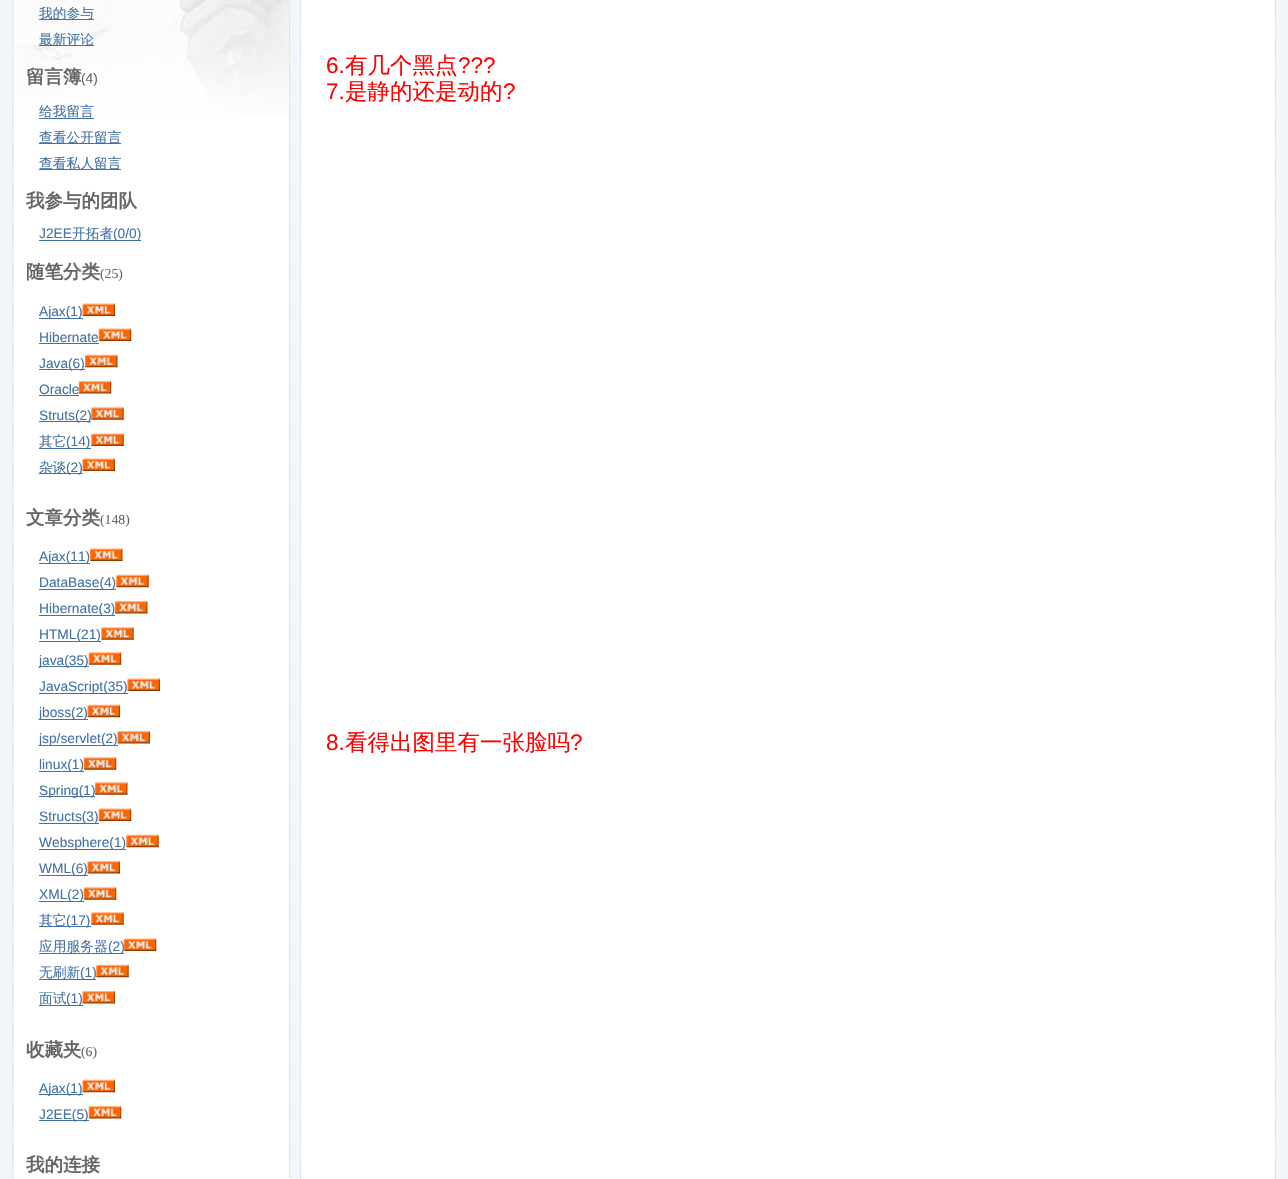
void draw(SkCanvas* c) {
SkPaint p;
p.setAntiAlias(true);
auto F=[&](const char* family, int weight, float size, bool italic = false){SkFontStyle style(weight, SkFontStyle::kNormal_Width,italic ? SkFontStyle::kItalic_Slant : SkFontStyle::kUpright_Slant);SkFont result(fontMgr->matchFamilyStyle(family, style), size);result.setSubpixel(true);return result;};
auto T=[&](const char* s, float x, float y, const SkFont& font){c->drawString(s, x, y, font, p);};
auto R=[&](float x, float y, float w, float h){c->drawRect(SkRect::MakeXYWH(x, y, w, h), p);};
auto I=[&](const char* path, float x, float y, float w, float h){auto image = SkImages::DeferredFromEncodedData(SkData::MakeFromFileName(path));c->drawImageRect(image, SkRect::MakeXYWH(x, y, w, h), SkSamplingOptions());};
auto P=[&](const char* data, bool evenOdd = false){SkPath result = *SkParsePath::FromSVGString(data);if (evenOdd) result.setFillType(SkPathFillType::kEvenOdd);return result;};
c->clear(0xfff2f6f9);
p.setColor(0xffffffff);
R(13,0,277,1179);
p.setStroke(true);
p.setStrokeWidth(1.2);
p.setColor(0xffbdcdee);
p.setPathEffect(SkDashPathEffect::Make({{1.25f,1.25f}}, 0));
c->drawPath(P("M289.5-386v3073.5"),p);
p.setPathEffect(nullptr);
p.setPathEffect(SkDashPathEffect::Make({{1.25f,1.25f}}, 0));
c->drawPath(P("M13-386v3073.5"),p);
p.setPathEffect(nullptr);
I("1.png",13,0,276,115);
p.setStroke(false);
p.setColor(0xff4371a6);
R(39,19,55,1);
auto f1 = F("WenQuanYi Zen Hei",500,13.75);
T("我的参与",39,18,f1);
R(39,45,55,1);
T("最新评论",39,44,f1);
auto f2 = F("WenQuanYi Zen Hei",700,18.5);
p.setColor(0xff666666);
T("留言簿",26,83,f2);
auto f3 = F("Liberation Sans",400,13.75);
T("(4)",81,83,f3);
p.setColor(0xff4371a6);
T("给我留言",39,116,f1);
R(39,118,55,1);
R(39,143,82,1);
T("查看公开留言",39,142,f1);
R(39,169,82,1);
T("查看私人留言",39,168,f1);
p.setColor(0xff666666);
T("我参与的团队",26,207,f2);
p.setColor(0xff4371a6);
T("J2EE",39,238,f3);
T("开拓者",72,238,f1);
R(39,240,102,1);
T("(0/0)",113,238,f3);
p.setColor(0xff666666);
T("随笔分类",26,278,f2);
auto f4 = F("Liberation Serif",400,13.75);
T("(25)",100,278,f4);
p.setColor(0xff4371a6);
R(39,318,44,1);
T("Ajax(1)",39,316,f3);
I("2.png",82,303,33,13);
T("Hibernate",39,342,f3);
R(39,343,60,1);
I("3.png",98,328,34,13);
R(39,369,46,1);
T("Java(6)",39,368,f3);
I("4.png",85,354,33,14);
T("Oracle",39,394,f3);
R(39,395,40,1);
I("5.png",78,381,34,13);
R(39,421,52,1);
T("Struts(2)",39,420,f3);
I("6.png",91,407,33,13);
R(39,448,52,1);
T("其它",39,446,f1);
T("(14)",66,446,f3);
I("7.png",91,433,33,13);
R(39,473,44,1);
T("杂谈",39,472,f1);
T("(2)",66,472,f3);
I("8.png",82,458,33,13);
p.setColor(0xff666666);
T("文章分类",26,524,f2);
T("(148)",100,524,f4);
p.setColor(0xff4371a6);
R(39,563,51,1);
T("Ajax(11)",39,561,f3);
I("9.png",90,548,33,13);
R(39,589,77,1);
T("DataBase(4)",39,587,f3);
I("10.png",116,574,33,14);
R(39,615,76,1);
T("Hibernate(3)",39,613,f3);
I("11.png",115,601,33,13);
R(39,641,62,1);
T("HTML(21)",39,639,f3);
I("6.png",101,627,33,13);
R(39,666,50,1);
T("java(35)",39,665,f3);
I("12.png",88,652,34,13);
R(39,693,89,1);
T("JavaScript(35)",39,691,f3);
I("2.png",127,678,33,13);
R(39,719,49,1);
T("jboss(2)",39,717,f3);
I("13.png",87,704,33,14);
R(39,745,79,1);
T("jsp/servlet(2)",39,743,f3);
I("14.png",117,731,33,13);
R(39,771,45,1);
T("linux(1)",39,769,f3);
I("12.png",83,757,34,13);
R(39,796,56,1);
T("Spring(1)",39,795,f3);
I("15.png",95,782,33,13);
R(39,823,60,1);
T("Structs(3)",39,821,f3);
I("3.png",98,808,34,13);
R(39,849,87,1);
T("Websphere(1)",39,847,f3);
I("10.png",126,834,33,14);
R(39,875,49,1);
T("WML(6)",39,873,f3);
I("14.png",87,861,33,13);
R(39,901,45,1);
T("XML(2)",39,899,f3);
I("16.png",83,887,34,13);
R(39,926,52,1);
T("其它",39,925,f1);
T("(17)",66,925,f3);
I("6.png",91,912,33,13);
T("应用服务器",39,951,f1);
R(39,953,85,1);
T("(2)",108,951,f3);
I("17.png",123,938,34,13);
T("无刷新",39,977,f1);
R(39,979,57,1);
T("(1)",80,977,f3);
I("10.png",96,964,33,14);
T("面试",39,1003,f1);
R(39,1005,44,1);
T("(1)",66,1003,f3);
I("18.png",82,991,33,13);
p.setColor(0xff666666);
T("收藏夹",26,1056,f2);
T("(6)",81,1056,f4);
p.setColor(0xff4371a6);
R(39,1094,44,1);
T("Ajax(1)",39,1093,f3);
I("13.png",82,1079,33,14);
R(39,1120,50,1);
T("J2EE(5)",39,1119,f3);
I("19.png",88,1106,34,13);
p.setColor(0xff666666);
T("我的连接",26,1171,f2);
p.setColor(0xffffffff);
R(300,0,976,1179);
p.setStroke(true);
p.setColor(0xffbdcdee);
p.setPathEffect(SkDashPathEffect::Make({{1.25f,1.25f}}, 0));
c->drawPath(P("M1275.5-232.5v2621.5"),p);
p.setPathEffect(nullptr);
p.setPathEffect(SkDashPathEffect::Make({{1.25f,1.25f}}, 0));
c->drawPath(P("M300.5-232.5v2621.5"),p);
p.setPathEffect(nullptr);
auto f5 = F("Liberation Sans",400,22.5);
p.setStroke(false);
p.setColor(0xffff0000);
T("6.",326,73,f5);
auto f6 = F("WenQuanYi Zen Hei",500,22.5);
T("有几个黑点",345,73,f6);
T("?\077?",458,73,f5);
T("7.",326,99,f5);
T("是静的还是动的",345,99,f6);
T("?",503,99,f5);
T("8.",326,750,f5);
T("看得出图里有一张脸吗",345,750,f6);
T("?",570,750,f5);
}
